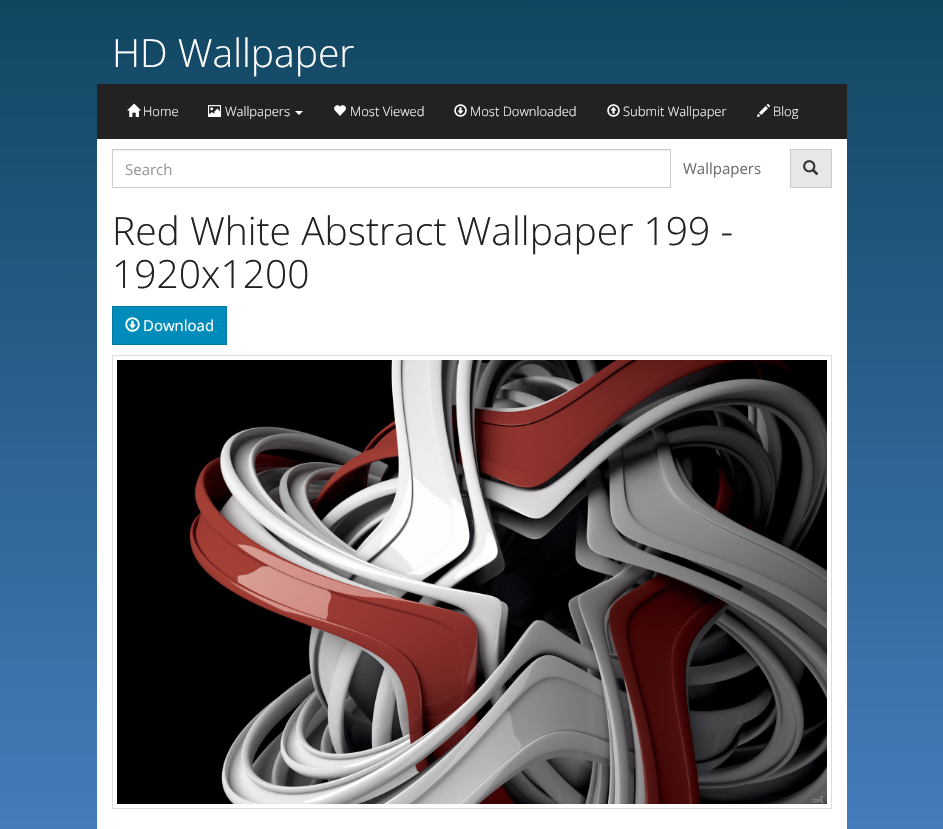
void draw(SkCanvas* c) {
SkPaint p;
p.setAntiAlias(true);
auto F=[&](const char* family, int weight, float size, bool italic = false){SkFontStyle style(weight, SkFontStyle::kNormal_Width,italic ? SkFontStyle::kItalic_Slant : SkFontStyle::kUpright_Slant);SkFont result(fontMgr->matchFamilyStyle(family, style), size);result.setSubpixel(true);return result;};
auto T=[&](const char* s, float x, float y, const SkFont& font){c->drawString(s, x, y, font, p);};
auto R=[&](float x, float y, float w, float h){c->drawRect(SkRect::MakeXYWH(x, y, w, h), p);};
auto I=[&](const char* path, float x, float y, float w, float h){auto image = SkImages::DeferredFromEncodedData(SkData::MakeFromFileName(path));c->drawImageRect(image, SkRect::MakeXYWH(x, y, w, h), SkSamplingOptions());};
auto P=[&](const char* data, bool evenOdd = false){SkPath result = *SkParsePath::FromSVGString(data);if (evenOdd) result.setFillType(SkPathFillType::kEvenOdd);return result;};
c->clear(0xffffffff);
{
const SkColor colors[] = {0xff114661,0xff497ec1};
const float stops[] = {0,.64};
const SkPoint ends[] = {{471,0}, {472,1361}};
p.setShader(SkGradientShader::MakeLinear(ends, colors, stops, 2, SkTileMode::kClamp));
p.setAlpha(255);
}
R(0,0,943,829);
auto f1 = F("Open Sans",300,39);
p.setShader(nullptr);
p.setColor(0xffffffff);
T("HD Wallpaper",112,67,f1);
p.setColor(0xff222222);
R(97,84,750,55);
I("1.png",127,103,14,14);
auto f2 = F("Open Sans",300,13);
p.setColor(0xffffffff);
T("Home",143,116,f2);
I("2.png",208,105,13,12);
T("Wallpapers",225,116,f2);
c->drawPath(P("M295 111h8l-4 4z"),p);
I("3.png",334,105,12,11);
T("Most Viewed",350,116,f2);
I("4.png",454,104,13,13);
T("Most Downloaded",470,116,f2);
I("5.png",607,104,13,13);
T("Submit Wallpaper",623,116,f2);
I("6.png",757,104,13,13);
T("Blog",773,116,f2);
R(97,139,750,690);
p.setColor(0xffececec);
R(113,150,557,1);
p.setStroke(true);
p.setStrokeWidth(1);
p.setColor(0xffcccccc);
c->drawRect(SkRect::MakeXYWH(112.5,149.5,558,38),p);
auto f3 = F("Open Sans",400,15);
p.setStroke(false);
p.setColor(0xff999999);
T("Search",125,175,f3);
p.setColor(0xff6f6f6f);
T("Wallpapers",683,174,f3);
p.setColor(0xffe7e7e7);
c->drawRect(SkRect::MakeXYWH(790.5,149.5,41,38),p);
p.setStroke(true);
p.setColor(0xffcccccc);
c->drawRect(SkRect::MakeXYWH(790.5,149.5,41,38),p);
I("7.png",803,160,16,15);
p.setStroke(false);
p.setColor(0xff222222);
T("Red White Abstract Wallpaper 199 -",112,245,f1);
T("1920x1200",112,288,f1);
p.setColor(0xff008cba);
c->drawRect(SkRect::MakeXYWH(112.5,306.5,114,38),p);
p.setStroke(true);
p.setColor(0xff0079a1);
c->drawRect(SkRect::MakeXYWH(112.5,306.5,114,38),p);
I("8.png",125,317,15,15);
p.setStroke(false);
p.setColor(0xffffffff);
T("Download",143,331,f3);
p.setStroke(true);
p.setColor(0xffdddddd);
c->drawRect(SkRect::MakeXYWH(112.5,355.5,719,453),p);
I("9.png",117,360,710,444);
}
